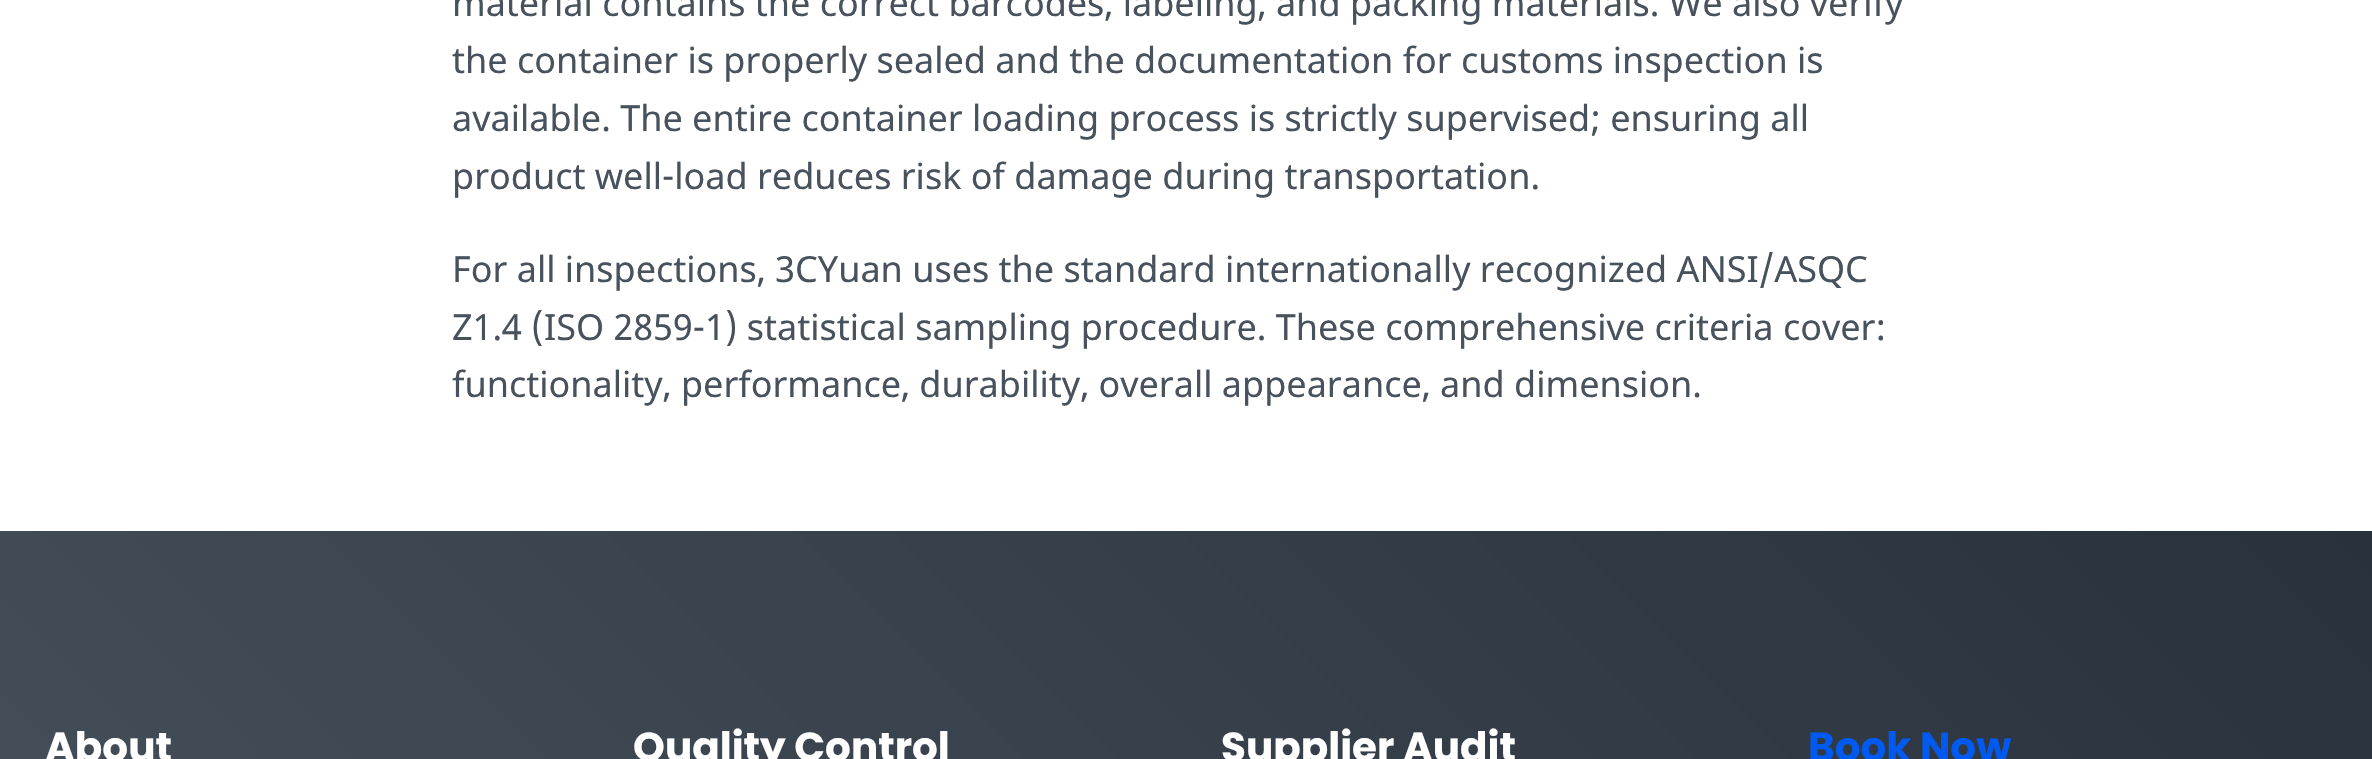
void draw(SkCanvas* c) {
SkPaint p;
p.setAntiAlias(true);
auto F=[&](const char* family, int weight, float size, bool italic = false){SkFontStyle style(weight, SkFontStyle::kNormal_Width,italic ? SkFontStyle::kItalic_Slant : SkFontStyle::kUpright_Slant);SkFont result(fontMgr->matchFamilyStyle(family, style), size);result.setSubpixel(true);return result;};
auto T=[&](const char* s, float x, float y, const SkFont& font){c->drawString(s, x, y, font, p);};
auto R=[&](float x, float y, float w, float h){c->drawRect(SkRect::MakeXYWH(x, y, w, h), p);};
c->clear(0xffffffff);
auto f1 = F("Noto Sans",400,36);
p.setColor(0xff48525c);
T("material contains the correct barcodes, labeling, and packing materials. We also verify",452,16,f1);
T("the container is properly sealed and the documentation for customs inspection is",452,73,f1);
T("available. The entire container loading process is strictly supervised; ensuring all",452,131,f1);
T("product well-load reduces risk of damage during transportation.",452,189,f1);
T("For all inspections, 3CYuan uses the standard internationally recognized ANSI/ASQC",452,282,f1);
T("Z1.4 (ISO 2859-1) statistical sampling procedure. These comprehensive criteria cover:",452,340,f1);
T("functionality, performance, durability, overall appearance, and dimension.",452,397,f1);
{
const SkColor colors[] = {0xff48525c,0xff29323c};
const float stops[] = {0,1};
const SkPoint ends[] = {{422,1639}, {1952,109}};
p.setShader(SkGradientShader::MakeLinear(ends, colors, stops, 2, SkTileMode::kClamp));
p.setAlpha(255);
}
R(0,531,2372,228);
auto f2 = F("Poppins",700,40.5);
p.setShader(nullptr);
p.setColor(0xffffffff);
T("About",45,761,f2);
T("Quality Control",633,761,f2);
T("Supplier Audit",1221,761,f2);
p.setColor(0xff005af0);
T("Book Now",1808,761,f2);
}
